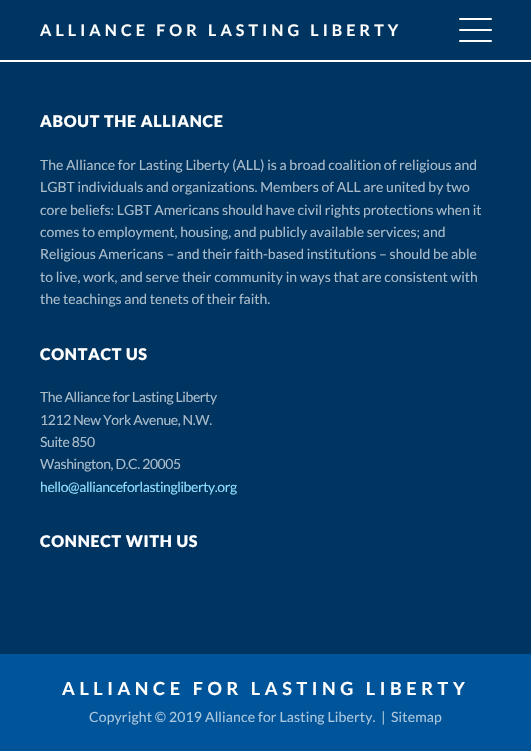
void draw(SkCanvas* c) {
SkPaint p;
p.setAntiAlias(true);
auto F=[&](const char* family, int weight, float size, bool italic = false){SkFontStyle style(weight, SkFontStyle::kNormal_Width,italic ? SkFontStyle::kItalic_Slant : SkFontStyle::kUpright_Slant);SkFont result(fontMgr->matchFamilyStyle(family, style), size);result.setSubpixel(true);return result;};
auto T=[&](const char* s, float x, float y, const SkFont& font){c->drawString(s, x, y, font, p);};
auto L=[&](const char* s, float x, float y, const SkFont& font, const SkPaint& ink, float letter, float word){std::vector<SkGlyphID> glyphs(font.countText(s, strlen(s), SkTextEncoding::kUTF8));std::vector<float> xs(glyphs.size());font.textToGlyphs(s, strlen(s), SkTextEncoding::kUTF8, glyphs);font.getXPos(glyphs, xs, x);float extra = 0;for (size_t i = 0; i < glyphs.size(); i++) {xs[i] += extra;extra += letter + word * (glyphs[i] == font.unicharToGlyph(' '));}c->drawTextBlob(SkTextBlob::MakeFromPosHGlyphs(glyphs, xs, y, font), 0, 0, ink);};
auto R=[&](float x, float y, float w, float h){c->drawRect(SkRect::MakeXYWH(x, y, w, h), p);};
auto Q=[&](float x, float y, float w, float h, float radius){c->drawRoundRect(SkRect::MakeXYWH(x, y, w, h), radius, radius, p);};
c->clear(0xff005499);
p.setColor(0xffffffff);
R(0,60,531,2);
p.setColor(0xff003561);
R(0,0,531,60);
auto f1 = F("Lato",700,16);
p.setColor(0xffffffff);
L("ALLIANCE FOR LASTING LIBERTY",40,36,f1,p,4.1,0);
Q(459,29,33,2,1);
Q(459,18,33,2,1);
Q(459,40,33,2,1);
p.setColor(0xff003561);
R(0,62,531,592);
auto f2 = F("Lato",900,16);
p.setColor(0xffffffff);
L("ABOUT THE ALLIANCE",40,127,f2,p,.75,0);
auto f3 = F("Lato",400,14);
p.setColor(0xffabbccb);
T("The Alliance for Lasting Liberty (ALL) is a broad coalition of religious and",40,170,f3);
T("LGBT individuals and organizations. Members of ALL are united by two",40,192,f3);
T("core beliefs: LGBT Americans should have civil rights protections when it",40,215,f3);
T("comes to employment, housing, and publicly available services; and",40,237,f3);
T("Religious Americans – and their faith-based institutions – should be able",40,259,f3);
T("to live, work, and serve their community in ways that are consistent with",40,282,f3);
T("the teachings and tenets of their faith.",40,304,f3);
p.setColor(0xffffffff);
L("CONTACT US",40,360,f2,p,.75,0);
p.setColor(0xffabbccb);
L("The Alliance for Lasting Liberty",40,402,f3,p,-.4,0);
L("1212 New York Avenue, N.W.",40,425,f3,p,-.4,0);
L("Suite 850",40,447,f3,p,-.4,0);
L("Washington, D.C. 20005",40,469,f3,p,-.4,0);
p.setColor(0xff8edeff);
L("hello@allianceforlastingliberty.org",40,492,f3,p,-.4,0);
p.setColor(0xffffffff);
L("CONNECT WITH US",40,547,f2,p,.75,0);
auto f4 = F("Lato",700,18);
L("ALLIANCE FOR LASTING LIBERTY",62,695,f4,p,4.6,0);
p.setColor(0xffabc7dd);
L("Copyright © 2019 Alliance for Lasting Liberty.  |",89,722,f3,p,.15,0);
L("Sitemap",391,722,f3,p,.15,0);
}
